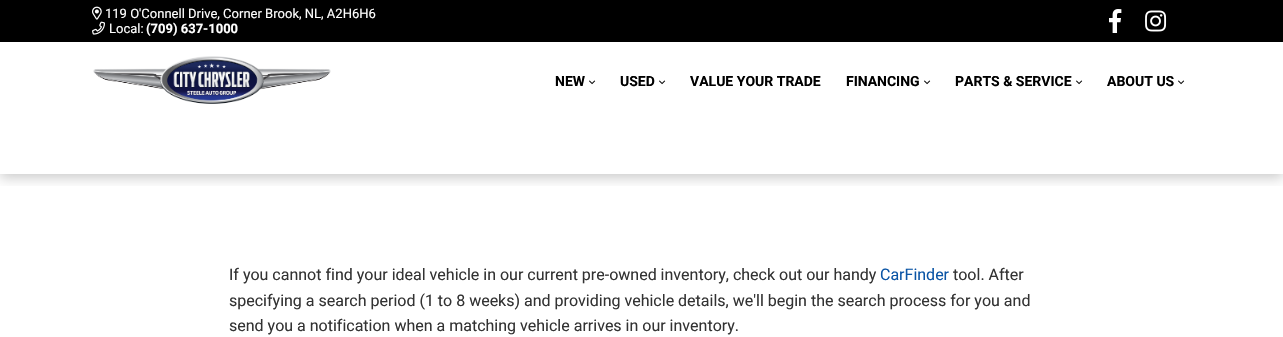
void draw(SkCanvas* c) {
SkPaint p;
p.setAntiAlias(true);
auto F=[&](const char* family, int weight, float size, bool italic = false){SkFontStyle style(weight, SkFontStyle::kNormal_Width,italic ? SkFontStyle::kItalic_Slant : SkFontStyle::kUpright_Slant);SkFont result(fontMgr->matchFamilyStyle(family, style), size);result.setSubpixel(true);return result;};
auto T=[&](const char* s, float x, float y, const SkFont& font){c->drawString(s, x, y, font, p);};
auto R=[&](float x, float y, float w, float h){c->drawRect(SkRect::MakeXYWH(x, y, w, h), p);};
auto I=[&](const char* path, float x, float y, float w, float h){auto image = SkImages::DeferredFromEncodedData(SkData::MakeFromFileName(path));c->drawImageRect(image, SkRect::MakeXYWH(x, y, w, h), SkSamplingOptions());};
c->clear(0xffffffff);
c->save();
c->clipRect(SkRect::MakeXYWH(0,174,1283,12));
p.setColor(0x33000000);
p.setMaskFilter(SkMaskFilter::MakeBlur(kNormal_SkBlurStyle, 6));
c->drawRect(SkRect::MakeXYWH(0,4,1283,174),p);
p.setMaskFilter(nullptr);
c->restore();
p.setColor(0xff000000);
R(0,0,1283,42);
I("1.png",92,6,10,14);
auto f1 = F("Roboto",400,13);
p.setColor(0xffffffff);
T("119 O'Connell Drive, Corner Brook, NL, A2H6H6",105,18,f1);
I("2.png",92,21,13,14);
T("Local:",109,33,f1);
auto f2 = F("Roboto",700,13);
T("(709) 637-1000",146,33,f2);
I("3.png",1109,9,13,24);
I("4.png",1145,10,22,22);
I("5.png",93,56,238,48);
auto f3 = F("Roboto",700,14);
p.setColor(0xff000000);
T("NEW",555,86,f3);
I("6.png",589,80,7,5);
T("USED",620,86,f3);
I("6.png",659,80,7,5);
T("VALUE YOUR TRADE",690,86,f3);
T("FINANCING",846,86,f3);
I("6.png",924,80,7,5);
T("PARTS & SERVICE",955,86,f3);
I("6.png",1076,80,7,5);
T("ABOUT US",1107,86,f3);
I("6.png",1178,80,7,5);
auto f4 = F("Roboto",400,16);
p.setColor(0xff333333);
T("If you cannot find your ideal vehicle in our current pre-owned inventory, check out our handy",229,280,f4);
p.setColor(0xff0b55a6);
T("CarFinder",880,280,f4);
p.setColor(0xff333333);
T("tool. After",953,280,f4);
T("specifying a search period (1 to 8 weeks) and providing vehicle details, we'll begin the search process for you and",229,306,f4);
T("send you a notification when a matching vehicle arrives in our inventory.",229,331,f4);
}
